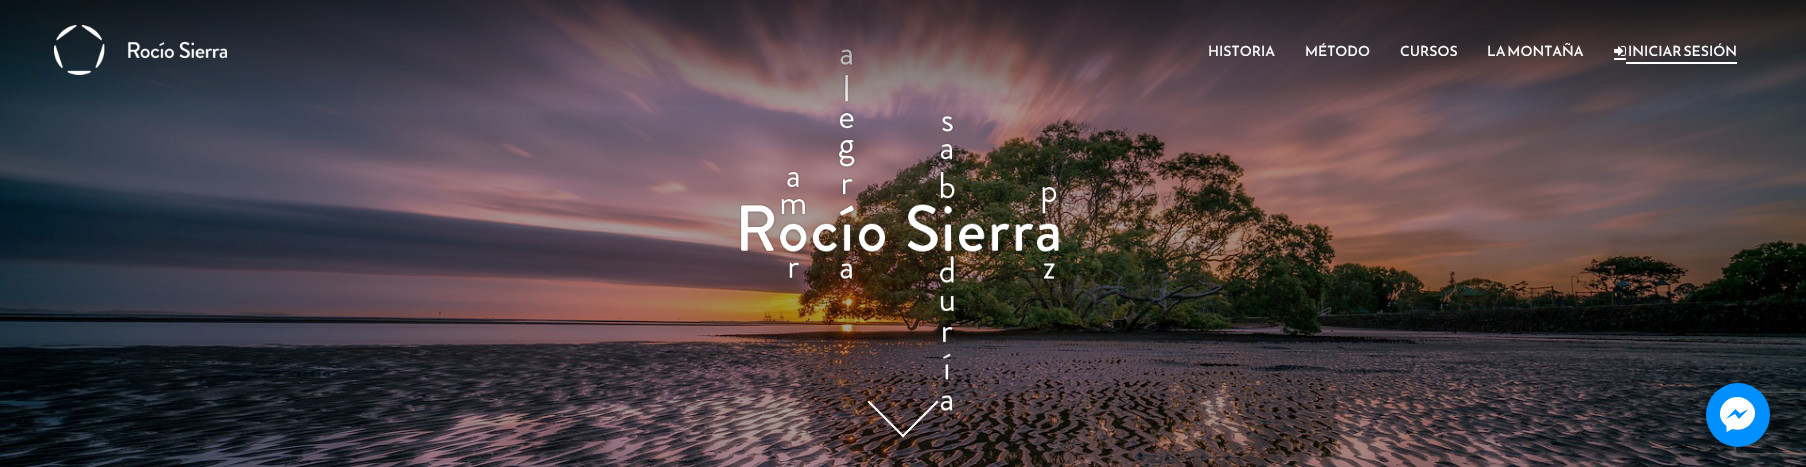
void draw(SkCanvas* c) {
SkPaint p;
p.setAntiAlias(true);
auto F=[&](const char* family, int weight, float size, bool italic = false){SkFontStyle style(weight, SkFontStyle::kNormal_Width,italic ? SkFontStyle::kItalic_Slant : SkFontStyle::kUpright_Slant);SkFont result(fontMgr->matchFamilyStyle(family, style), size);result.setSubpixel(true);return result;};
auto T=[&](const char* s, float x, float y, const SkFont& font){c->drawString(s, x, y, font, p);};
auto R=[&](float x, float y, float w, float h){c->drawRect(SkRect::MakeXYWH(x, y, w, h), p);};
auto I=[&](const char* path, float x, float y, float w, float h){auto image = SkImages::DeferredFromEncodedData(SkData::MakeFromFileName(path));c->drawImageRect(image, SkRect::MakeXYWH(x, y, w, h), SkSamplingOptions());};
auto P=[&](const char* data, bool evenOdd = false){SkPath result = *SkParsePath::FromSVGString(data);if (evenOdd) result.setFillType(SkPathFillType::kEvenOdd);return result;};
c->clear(0xffffffff);
I("1.png",0,0,1806,467);
I("2.png",740,48,320,364);
p.setColor(0xffffffff);
c->drawPath(P("M937 400.5l1.5 1.5l-35.5 35.5l-1.5-1.5z"),p);
c->drawPath(P("M869 400.5l35.5 35.5l-1.5 1.5l-35.5-35.5z"),p);
{
const SkColor colors[] = {0x8c000000,0x00000000};
const float stops[] = {0,1};
const SkPoint ends[] = {{903,0}, {903,110}};
p.setShader(SkGradientShader::MakeLinear(ends, colors, stops, 2, SkTileMode::kClamp));
p.setAlpha(255);
}
R(0,0,1806,106);
I("3.png",54,25,173,50);
auto f1 = F("Reem Kufi",400,14);
p.setShader(nullptr);
p.setColor(0xffffffff);
T("HISTORIA",1208,56,f1);
T("MÉTODO",1305,56,f1);
T("CURSOS",1400,56,f1);
T("LA MONTAÑA",1487,56,f1);
R(1614,58,12,2);
R(1626,62,111,2);
I("4.png",1614,46,12,10);
T("INICIAR SESIÓN",1628,56,f1);
p.setColor(0x33000000);
p.setMaskFilter(SkMaskFilter::MakeBlur(kNormal_SkBlurStyle, 2.5));
c->drawRoundRect(SkRect::MakeXYWH(1706,383,64,64),32,32,p);
p.setMaskFilter(nullptr);
c->save();
c->clipPath(P("M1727 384h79v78h-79zm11 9h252c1 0 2 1 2 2v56c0 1-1 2-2 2h-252c-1 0-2-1-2-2v-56c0-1 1-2 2-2z",true),true);
p.setColor(0xff808080);
p.setMaskFilter(SkMaskFilter::MakeBlur(kNormal_SkBlurStyle, 2.5));
c->drawRoundRect(SkRect::MakeXYWH(1736,393,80,60),2,2,p);
p.setMaskFilter(nullptr);
c->restore();
p.setColor(0xff008fff);
c->drawCircle(1738,415,32,p);
p.setColor(0xffffffff);
c->drawPath(P("M1737.5 397c-16 0-24 19.5-11 29v6l6-3c17 5 31.5-16.5 16-28c-3-2.5-7-4-11-4zm1.5 22l-4-5l-9 5l9.5-10l4.5 4.5l8.5-4.5z"),p);
}
